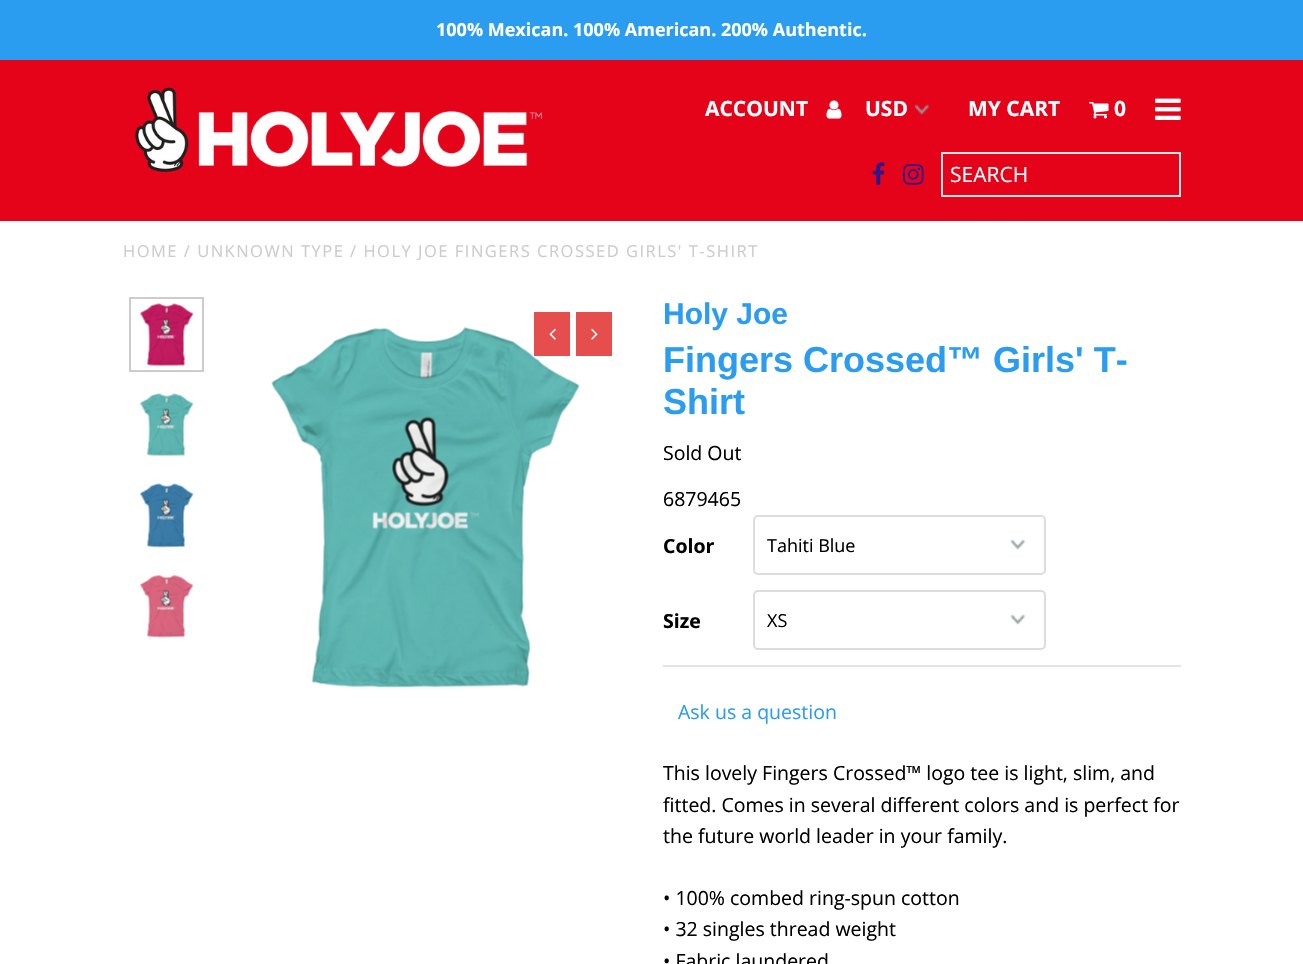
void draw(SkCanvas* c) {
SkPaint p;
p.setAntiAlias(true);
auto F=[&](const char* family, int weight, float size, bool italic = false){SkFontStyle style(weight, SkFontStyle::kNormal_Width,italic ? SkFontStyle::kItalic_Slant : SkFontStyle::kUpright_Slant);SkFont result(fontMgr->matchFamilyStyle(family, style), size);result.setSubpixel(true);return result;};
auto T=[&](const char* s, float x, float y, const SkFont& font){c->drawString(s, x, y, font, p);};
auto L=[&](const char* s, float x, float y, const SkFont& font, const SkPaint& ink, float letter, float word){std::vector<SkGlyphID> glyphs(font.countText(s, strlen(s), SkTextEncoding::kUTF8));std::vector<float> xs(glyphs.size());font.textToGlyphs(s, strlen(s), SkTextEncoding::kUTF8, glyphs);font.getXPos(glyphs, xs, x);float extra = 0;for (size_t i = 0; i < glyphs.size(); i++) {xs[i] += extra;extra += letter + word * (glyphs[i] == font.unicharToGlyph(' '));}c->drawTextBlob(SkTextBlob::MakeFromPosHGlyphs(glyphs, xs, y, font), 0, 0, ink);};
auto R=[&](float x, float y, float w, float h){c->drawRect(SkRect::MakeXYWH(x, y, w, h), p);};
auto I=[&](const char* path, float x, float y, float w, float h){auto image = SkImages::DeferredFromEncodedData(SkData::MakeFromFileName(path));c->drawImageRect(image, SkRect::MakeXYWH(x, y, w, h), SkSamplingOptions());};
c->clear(0xffffffff);
p.setColor(0xff2b9df0);
R(0,0,1303,60);
auto f1 = F("Open Sans",700,18);
p.setColor(0xffffffff);
T("100% Mexican. 100% American. 200% Authentic.",436,36,f1);
p.setColor(0xffe5031a);
R(0,60,1303,161);
I("1.png",135,87,408,86);
auto f2 = F("Open Sans",700,21);
p.setColor(0xffffffff);
T("ACCOUNT",705,116,f2);
I("2.png",826,100,16,19);
I("3.png",914,104,15,11);
T("USD",865,116,f2);
T("MY CART",968,116,f2);
I("4.png",1089,102,20,17);
T("0",1114,116,f2);
I("5.png",1155,98,26,22);
I("6.png",872,162,13,23);
I("7.png",903,164,21,21);
p.setStroke(true);
p.setStrokeWidth(2);
p.setColor(0xffe5e5e5);
c->drawRect(SkRect::MakeXYWH(942,153,238,43),p);
auto f3 = F("Open Sans",400,21);
p.setStroke(false);
p.setColor(0xffffffff);
T("SEARCH",950,182,f3);
auto f4 = F("Open Sans",400,16.5);
p.setColor(0xffcccccc);
L("HOME / UNKNOWN TYPE / HOLY JOE FINGERS CROSSED GIRLS' T-SHIRT",123,257,f4,p,1.5,0);
p.setStroke(true);
c->drawRect(SkRect::MakeXYWH(130,298,73,73),p);
I("8.png",139,303,55,63);
I("9.png",139,393,55,63);
I("10.png",139,483,55,65);
I("11.png",140,575,54,63);
I("14.png",271,326,309,362);
p.setStroke(false);
p.setColor(0xffe64e4e);
R(534,312,36,44);
I("12.png",549,328,7,12);
R(576,312,36,44);
I("13.png",591,328,7,12);
auto f5 = F("Liberation Sans",700,30);
p.setColor(0xff2b9df0);
T("Holy Joe",663,324,f5);
auto f6 = F("Liberation Sans",700,36);
T("Fingers Crossed™ Girls' T-",663,372,f6);
T("Shirt",663,414,f6);
auto f7 = F("Open Sans",400,19.5);
p.setColor(0xff000000);
T("Sold Out",663,460,f7);
T("6879465",663,506,f7);
p.setColor(0xffe5e5e5);
R(663,665,518,2);
auto f8 = F("Open Sans",700,19.5);
p.setColor(0xff000000);
T("Color",663,553,f8);
I("15.png",1010,539,15,11);
p.setStroke(true);
p.setColor(0xffdddddd);
c->drawRoundRect(SkRect::MakeXYWH(754,516,291,58),4,4,p);
auto f9 = F("Open Sans",400,18);
p.setStroke(false);
p.setColor(0xff000000);
T("Tahiti Blue",767,552,f9);
T("Size",663,628,f8);
I("15.png",1010,614,15,11);
p.setStroke(true);
p.setColor(0xffdddddd);
c->drawRoundRect(SkRect::MakeXYWH(754,591,291,58),4,4,p);
p.setStroke(false);
p.setColor(0xff000000);
T("XS",767,627,f9);
p.setColor(0xff2b9df0);
T("Ask us a question",678,719,f7);
p.setColor(0xff000000);
T("This lovely Fingers Crossed™ logo tee is light, slim, and",663,780,f7);
T("fitted. Comes in several different colors and is perfect for",663,812,f7);
T("the future world leader in your family.",663,843,f7);
T("• 100% combed ring-spun cotton",663,905,f7);
T("• 32 singles thread weight",663,936,f7);
T("• Fabric laundered",663,968,f7);
}
